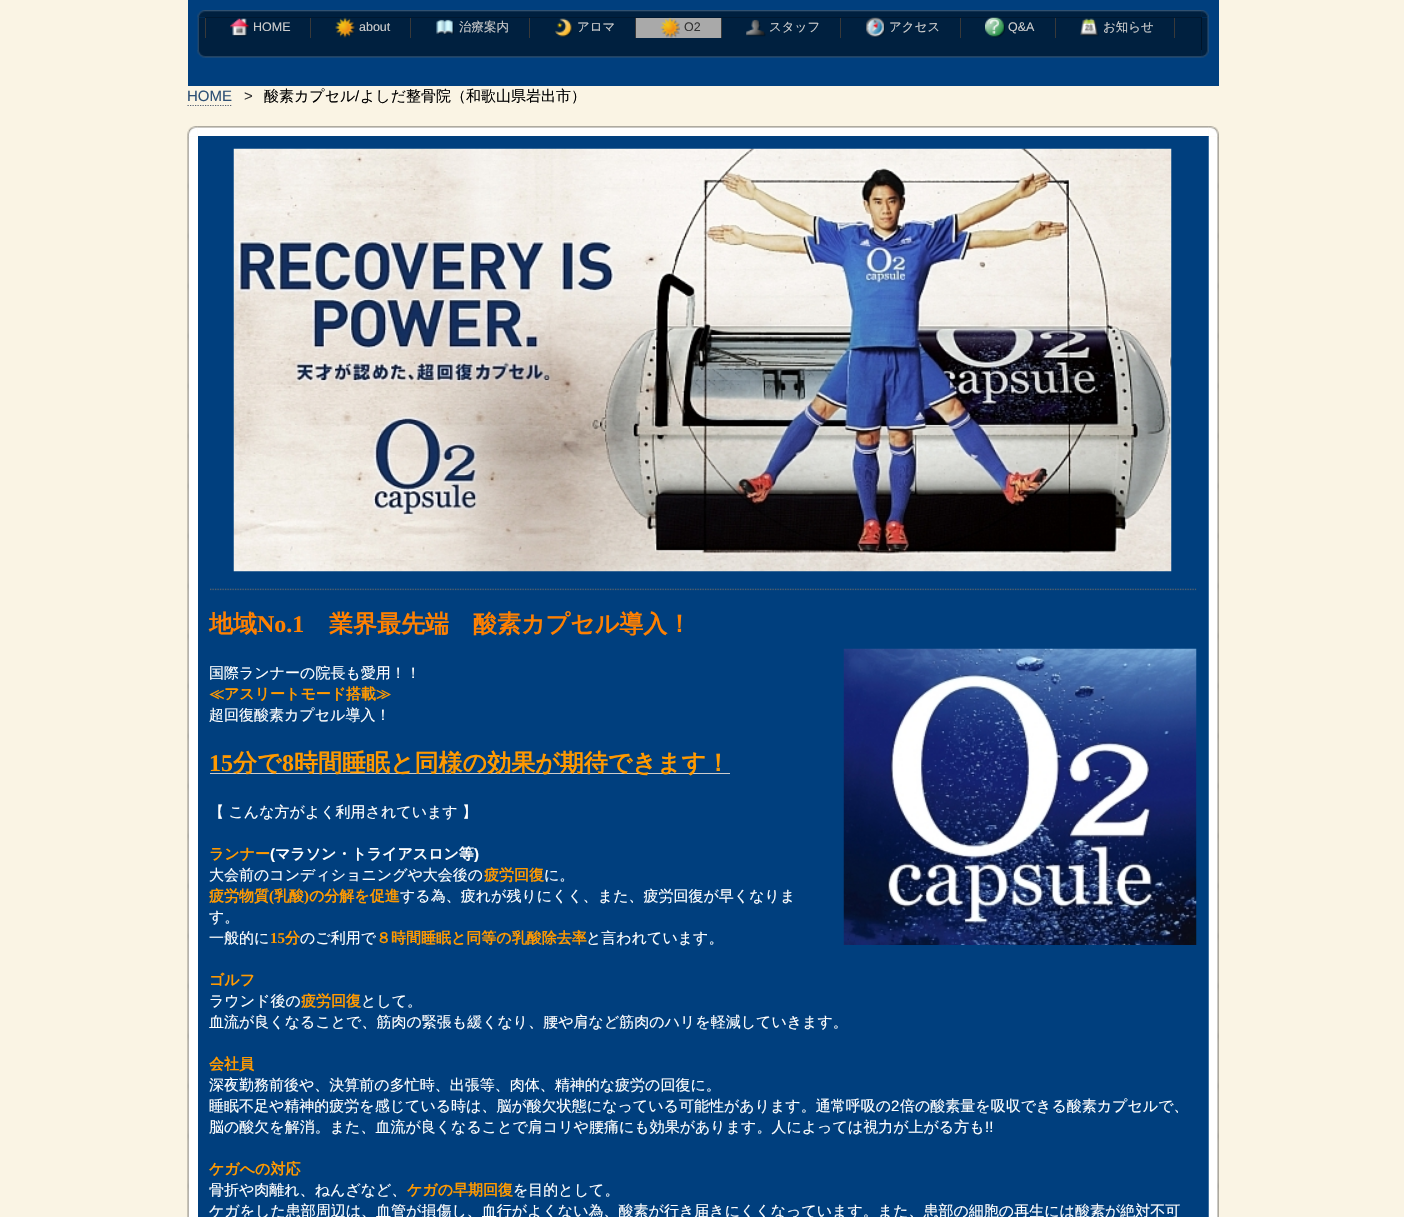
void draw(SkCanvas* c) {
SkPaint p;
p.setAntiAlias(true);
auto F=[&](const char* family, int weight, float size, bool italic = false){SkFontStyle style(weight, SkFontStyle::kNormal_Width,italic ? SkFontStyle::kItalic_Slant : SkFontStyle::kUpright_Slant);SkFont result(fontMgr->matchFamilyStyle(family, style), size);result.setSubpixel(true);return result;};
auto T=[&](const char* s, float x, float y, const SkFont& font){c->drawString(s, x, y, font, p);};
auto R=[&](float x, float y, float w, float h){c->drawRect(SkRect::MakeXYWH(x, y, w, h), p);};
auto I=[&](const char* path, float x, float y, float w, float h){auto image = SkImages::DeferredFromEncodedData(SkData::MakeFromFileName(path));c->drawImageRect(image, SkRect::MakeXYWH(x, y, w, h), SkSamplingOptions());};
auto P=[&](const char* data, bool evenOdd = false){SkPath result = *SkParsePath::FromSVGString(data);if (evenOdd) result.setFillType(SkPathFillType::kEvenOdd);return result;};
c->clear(0xfffaf4e4);
p.setColor(0xff003f7e);
R(188,0,1031,86);
I("1.png",197,10,8,8);
I("2.png",205,10,997,8);
I("3.png",1201,10,8,8);
I("4.png",197,17,8,33);
p.setColor(0x80000000);
R(205,17,997,33);
p.setColor(0xff393939);
R(310,18,1,20);
R(205,18,1,20);
I("5.png",230,18,20,19);
auto f1 = F("Liberation Sans",400,12.5);
p.setColor(0xffcccccc);
T("HOME",253,31,f1);
p.setColor(0xff393939);
R(410,18,1,20);
I("6.png",335,17,20,21);
p.setColor(0xffcccccc);
T("about",359,31,f1);
p.setColor(0xff393939);
R(529,18,1,20);
I("7.png",436,19,18,16);
auto f2 = F("WenQuanYi Zen Hei",500,12.5);
p.setColor(0xffcccccc);
T("治療案内",459,31,f2);
p.setColor(0xff393939);
R(635,18,1,20);
I("8.png",555,18,18,20);
p.setColor(0xffcccccc);
T("アロマ",577,31,f2);
p.setColor(0xff393939);
R(721,18,1,20);
p.setColor(0xffa9a9a9);
R(636,18,85,20);
I("9.png",660,17,20,21);
p.setColor(0xff333333);
T("O2",684,31,f1);
p.setColor(0xff393939);
R(840,18,1,20);
I("10.png",746,19,20,18);
p.setColor(0xffcccccc);
T("スタッフ",769,31,f2);
p.setColor(0xff393939);
R(960,18,1,20);
I("11.png",866,17,19,21);
p.setColor(0xffcccccc);
T("アクセス",889,31,f2);
p.setColor(0xff393939);
R(1055,18,1,20);
I("12.png",985,17,20,21);
p.setColor(0xffcccccc);
T("Q&A",1008,31,f1);
p.setColor(0xff393939);
R(1174,18,1,20);
I("13.png",1080,18,19,19);
p.setColor(0xffcccccc);
T("お知らせ",1103,31,f2);
I("14.png",1201,17,8,33);
I("15.png",197,50,8,8);
I("16.png",205,50,997,8);
I("17.png",1201,50,8,8);
auto f3 = F("Liberation Sans",400,15);
p.setColor(0xff2e5075);
T("HOME",187,101,f3);
p.setStroke(true);
p.setStrokeWidth(1.2);
p.setColor(0xff556072);
p.setPathEffect(SkDashPathEffect::Make({{1.25f,1.25f}}, 0));
c->drawPath(P("M187.5 105.5h45"),p);
p.setPathEffect(nullptr);
p.setStroke(false);
p.setColor(0xff333333);
T(">",244,101,f3);
auto f4 = F("WenQuanYi Zen Hei",500,15);
p.setColor(0xff000000);
T("酸素カプセル",264,101,f4);
T("/",355,101,f3);
T("よしだ整骨院（和歌山県岩出市）",360,101,f4);
I("19.png",197,126,1012,10);
I("18.png",187,126,11,11);
I("20.png",1208,126,11,11);
I("21.png",187,136,10,1081);
p.setColor(0xffffffff);
R(197,136,1,1081);
p.setColor(0xff003f7e);
R(198,136,1011,1081);
I("22.png",233,148,939,424);
I("23.png",210,588,987,3);
auto f5 = F("WenQuanYi Zen Hei",700,24);
p.setColor(0xffff8000);
T("地域",209,632,f5);
auto f6 = F("Liberation Serif",700,24);
T("No.1",257,632,f6);
T("業界最先端　酸素カプセル導入！",329,632,f5);
p.setColor(0xffffffff);
T("国際ランナーの院長も愛用！！",209,678,f4);
I("24.png",843,648,354,297);
auto f7 = F("WenQuanYi Zen Hei",700,15);
p.setColor(0xffff9900);
T("≪アスリートモード搭載≫",209,699,f7);
p.setColor(0xffffffff);
T("超回復酸素カプセル導入！",209,720,f4);
p.setColor(0xffff9900);
T("15",209,771,f6);
p.setColor(0xffcccccc);
R(210,773,520,1);
p.setColor(0xffff9900);
T("分で",233,771,f5);
T("8",282,771,f6);
T("時間睡眠と同様の効果が期待できます！",294,771,f5);
p.setColor(0xffffffff);
T("【 こんな方がよく利用されています 】",209,817,f4);
p.setColor(0xffff9900);
T("ランナー",209,859,f7);
auto f8 = F("Liberation Sans",700,15);
p.setColor(0xffffffff);
T("(",270,859,f8);
T("マラソン・トライアスロン等",275,859,f7);
T(")",474,859,f8);
T("大会前のコンディショニングや大会後の",209,880,f4);
p.setColor(0xffff9900);
T("疲労回復",484,880,f7);
p.setColor(0xffffffff);
T("に。",544,880,f4);
p.setColor(0xffff9900);
T("疲労物質",209,901,f7);
auto f9 = F("Liberation Serif",700,15);
T("(",269,901,f9);
T("乳酸",274,901,f7);
T(")",304,901,f9);
T("の分解を促進",309,901,f7);
p.setColor(0xffffffff);
T("する為、疲れが残りにくく、また、疲労回復が早くなりま",400,901,f4);
T("す。",209,922,f4);
T("一般的に",209,943,f4);
p.setColor(0xffff9900);
T("15",270,943,f9);
T("分",285,943,f7);
p.setColor(0xffffffff);
T("のご利用で",300,943,f4);
p.setColor(0xffff9900);
T("８時間睡眠と同等の乳酸除去率",376,943,f7);
p.setColor(0xffffffff);
T("と言われています。",586,943,f4);
p.setColor(0xffff9900);
T("ゴルフ",209,985,f7);
p.setColor(0xffffffff);
T("ラウンド後の",209,1006,f4);
p.setColor(0xffff9900);
T("疲労回復",301,1006,f7);
p.setColor(0xffffffff);
T("として。",361,1006,f4);
T("血流が良くなることで、筋肉の緊張も緩くなり、腰や肩など筋肉のハリを軽減していきます。",209,1027,f4);
p.setColor(0xffff9900);
T("会社員",209,1069,f7);
p.setColor(0xffffffff);
T("深夜勤務前後や、決算前の多忙時、出張等、肉体、精神的な疲労の回復に。",209,1090,f4);
T("睡眠不足や精神的疲労を感じている時は、脳が酸欠状態になっている可能性があります。通常呼吸の",209,1111,f4);
T("2",891,1111,f3);
T("倍の酸素量を吸収できる酸素カプセルで、",900,1111,f4);
T("脳の酸欠を解消。また、血流が良くなることで肩コリや腰痛にも効果があります。人によっては視力が上がる方も",209,1132,f4);
T("!!",985,1132,f3);
p.setColor(0xffff9900);
T("ケガへの対応",209,1174,f7);
p.setColor(0xffffffff);
T("骨折や肉離れ、ねんざなど、",209,1195,f4);
p.setColor(0xffff9900);
T("ケガの早期回復",407,1195,f7);
p.setColor(0xffffffff);
T("を目的として。",513,1195,f4);
T("ケガをした患部周辺は、血管が損傷し、血行がよくない為、酸素が行き届きにくくなっています。また、患部の細胞の再生には酸素が絶対不可",209,1216,f4);
I("25.png",1208,136,11,1081);
}
